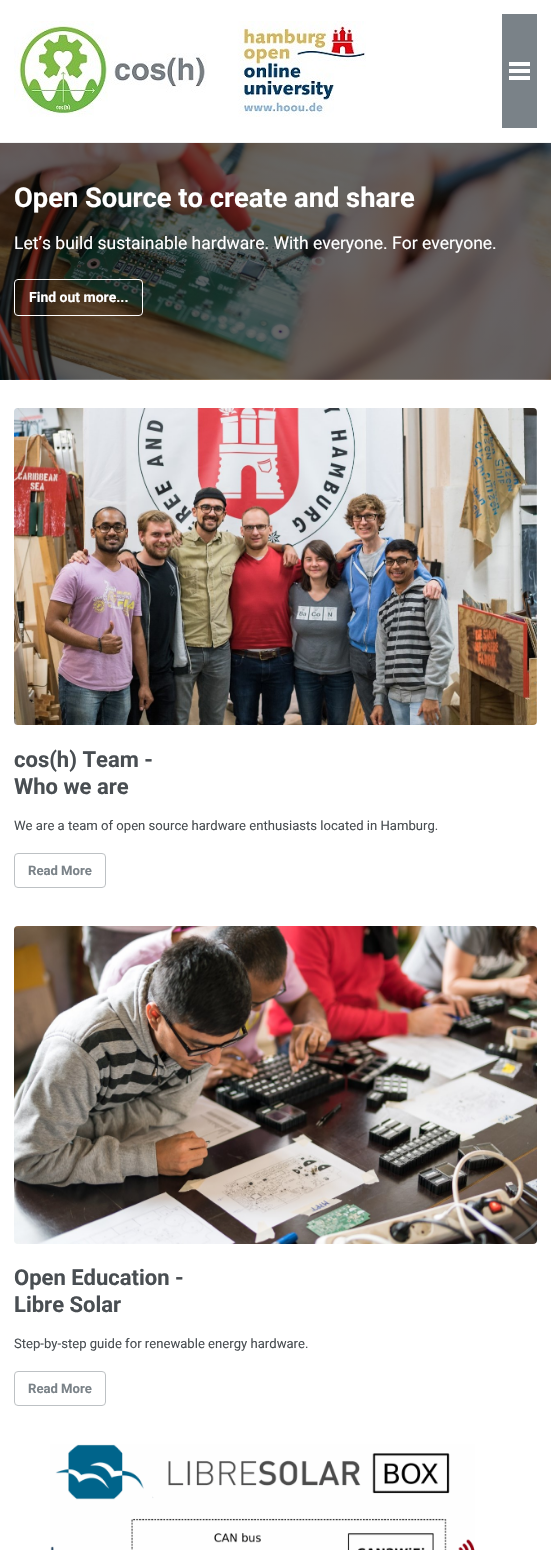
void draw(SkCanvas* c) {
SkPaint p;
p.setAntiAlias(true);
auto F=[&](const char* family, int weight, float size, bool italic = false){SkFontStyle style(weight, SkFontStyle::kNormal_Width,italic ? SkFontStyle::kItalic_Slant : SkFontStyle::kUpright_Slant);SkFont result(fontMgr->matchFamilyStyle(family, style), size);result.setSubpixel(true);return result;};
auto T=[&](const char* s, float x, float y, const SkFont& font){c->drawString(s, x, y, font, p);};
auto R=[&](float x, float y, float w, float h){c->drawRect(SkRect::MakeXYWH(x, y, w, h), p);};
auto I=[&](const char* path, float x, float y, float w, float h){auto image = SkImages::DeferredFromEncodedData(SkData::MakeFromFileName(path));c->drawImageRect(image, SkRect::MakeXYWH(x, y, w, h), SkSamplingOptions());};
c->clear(0xffffffff);
p.setColor(0xfff2f3f3);
R(0,142,551,1);
I("1.png",14,21,352,96);
p.setColor(0xff7a8288);
R(502,14,35,114);
p.setColor(0xffffffff);
R(509,69,21,4);
R(509,62,21,4);
R(509,76,21,4);
I("2.png",0,143,551,237);
auto f1 = F("Roboto",700,27.3);
T("Open Source to create and share",14,207,f1);
auto f2 = F("Roboto",400,17.5);
T("Let’s build sustainable hardware. With everyone. For everyone.",14,249,f2);
p.setStroke(true);
p.setStrokeWidth(1);
c->drawRoundRect(SkRect::MakeXYWH(14.5,279.5,128,36),3.5,3.5,p);
auto f3 = F("Roboto",700,14);
p.setStroke(false);
T("Find out more...",29,302,f3);
I("3.png",14,408,523,317);
auto f4 = F("Roboto",700,22);
p.setColor(0xff494e52);
T("cos(h) Team -",14,767,f4);
T("Who we are",14,794,f4);
auto f5 = F("Roboto",400,13.1);
T("We are a team of open source hardware enthusiasts located in Hamburg.",14,830,f5);
p.setStroke(true);
p.setColor(0xffbdc1c4);
c->drawRoundRect(SkRect::MakeXYWH(14.5,853.5,91,34),3.5,3.5,p);
auto f6 = F("Roboto",700,13.1);
p.setStroke(false);
p.setColor(0xff7a8288);
T("Read More",28,875,f6);
I("4.png",14,926,523,318);
p.setColor(0xff494e52);
T("Open Education -",14,1285,f4);
T("Libre Solar",14,1312,f4);
T("Step-by-step guide for renewable energy hardware.",14,1348,f5);
p.setStroke(true);
p.setColor(0xffbdc1c4);
c->drawRoundRect(SkRect::MakeXYWH(14.5,1371.5,91,34),3.5,3.5,p);
p.setStroke(false);
p.setColor(0xff7a8288);
T("Read More",28,1393,f6);
I("5.png",50,1444,425,106);
}
